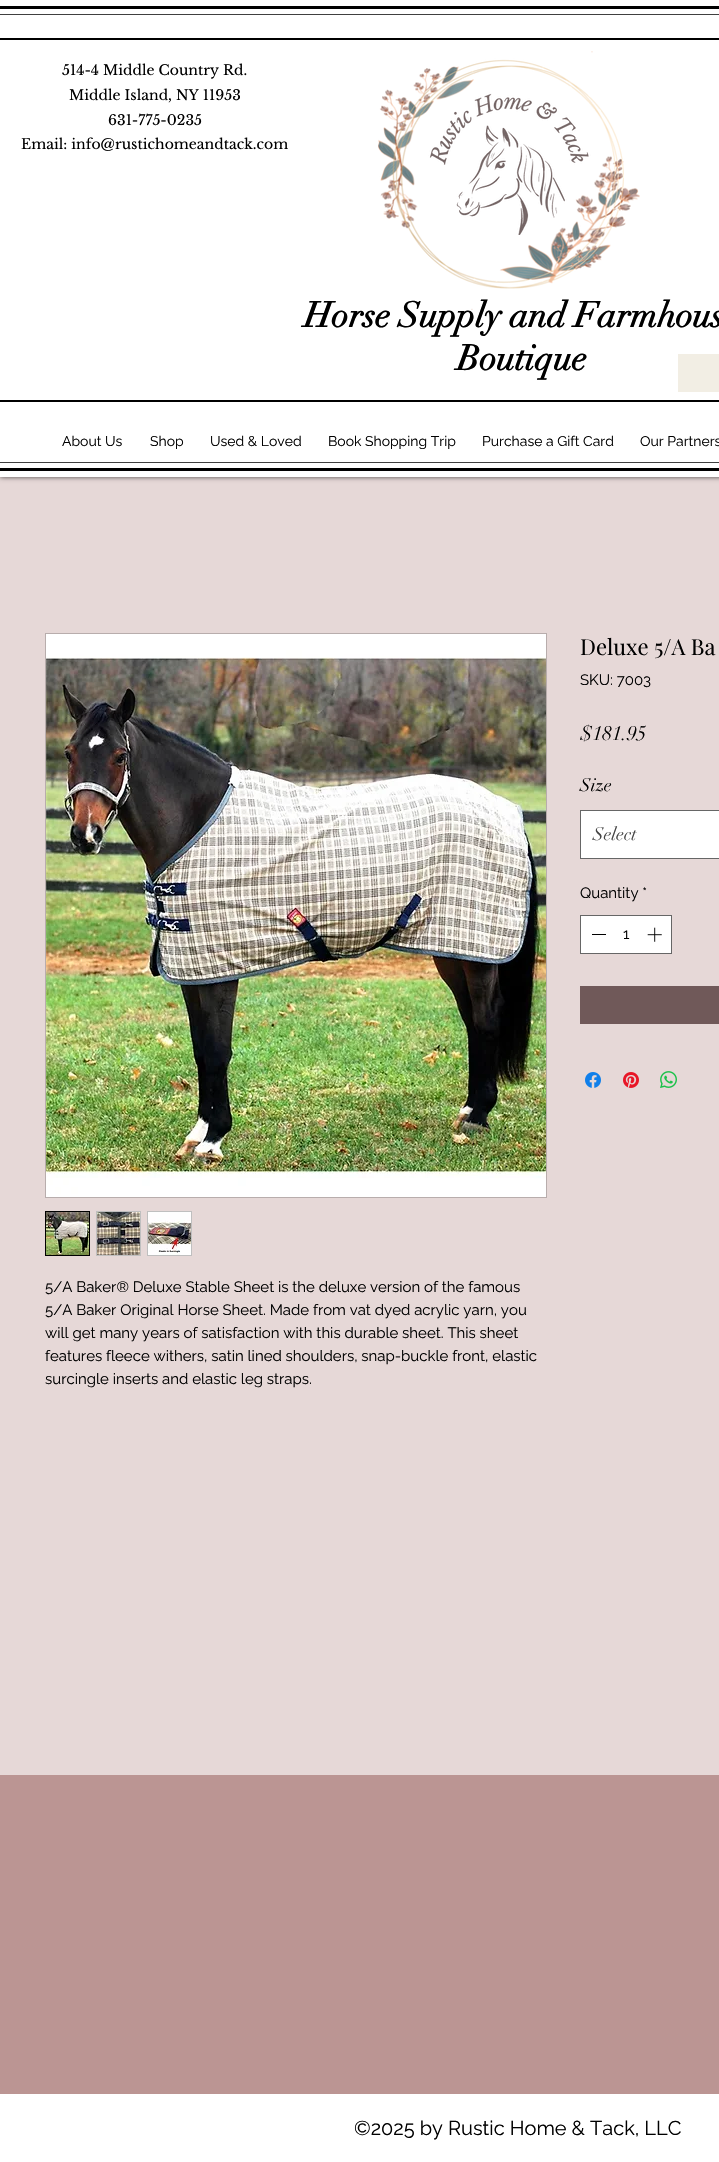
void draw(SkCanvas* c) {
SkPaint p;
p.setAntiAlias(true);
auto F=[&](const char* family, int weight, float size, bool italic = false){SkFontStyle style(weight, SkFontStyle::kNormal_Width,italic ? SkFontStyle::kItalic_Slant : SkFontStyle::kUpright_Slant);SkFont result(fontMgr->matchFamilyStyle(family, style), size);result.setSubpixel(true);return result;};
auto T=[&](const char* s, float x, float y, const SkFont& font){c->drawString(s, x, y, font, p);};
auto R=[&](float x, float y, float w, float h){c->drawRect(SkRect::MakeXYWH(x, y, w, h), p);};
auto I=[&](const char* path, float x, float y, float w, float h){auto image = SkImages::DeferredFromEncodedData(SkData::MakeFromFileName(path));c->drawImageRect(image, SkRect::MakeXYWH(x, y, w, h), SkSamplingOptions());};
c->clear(0xffbb9593);
p.setColor(0xffe6d8d7);
R(0,477,719,1298);
p.setColor(0xb3000000);
p.setMaskFilter(SkMaskFilter::MakeBlur(kNormal_SkBlurStyle, 2.5));
c->drawRect(SkRect::MakeXYWH(0,0,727,477),p);
p.setMaskFilter(nullptr);
p.setColor(0xffffffff);
R(0,0,719,477);
p.setColor(0xff000000);
R(0,6,719,3);
R(0,468,719,3);
p.setColor(0xff404040);
R(0,14,719,1);
R(0,462,719,1);
p.setColor(0xff000000);
R(0,38,719,2);
auto f1 = F("Libre Baskerville",400,14);
T("514-4 Middle Country Rd.",62,75,f1);
T("Middle Island, NY 11953",69,100,f1);
T("631-775-0235",108,125,f1);
T("Email: info@rustichomeandtack.com",21,149,f1);
auto f2 = F("didot",700,35);
T("Horse Supply and Farmhous",304,327,f2);
I("1.png",378,51,262,259);
T("Boutique",457,370,f2);
p.setColor(0xfff2eee4);
R(678,354,41,38);
p.setColor(0xff000000);
R(0,400,719,2);
auto f3 = F("Raleway",400,14);
T("About Us",62,446,f3);
T("Shop",150,446,f3);
T("Used & Loved",210,446,f3);
T("Book Shopping Trip",328,446,f3);
T("Purchase a Gift Card",482,446,f3);
T("Our Partners",640,446,f3);
auto f4 = F("Playfair Display",400,22);
T("Deluxe 5/A Ba",580,655,f4);
auto f5 = F("Raleway",400,15);
T("SKU: 7003",580,685,f5);
auto f6 = F("didot",400,20);
T("$181.95",580,740,f6);
auto f7 = F("didot",400,18);
T("Size",580,791,f7);
p.setColor(0xffffffff);
c->drawRect(SkRect::MakeXYWH(580.5,810.5,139,48),p);
p.setStroke(true);
p.setStrokeWidth(1);
p.setColor(0xff666666);
c->drawRect(SkRect::MakeXYWH(580.5,810.5,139,48),p);
p.setStroke(false);
p.setColor(0xff444444);
T("Select",593,840,f7);
p.setColor(0xff000000);
T("Quantity *",580,898,f5);
p.setColor(0xffffffff);
c->drawRect(SkRect::MakeXYWH(580.5,915.5,91,38),p);
p.setStroke(true);
p.setColor(0xff666666);
c->drawRect(SkRect::MakeXYWH(580.5,915.5,91,38),p);
p.setStroke(false);
p.setColor(0xff000000);
R(592,934,14,1);
T("1",623,939,f5);
I("2.png",647,927,15,15);
p.setColor(0xff705959);
R(580,986,139,38);
I("3.png",585,1072,16,16);
I("4.png",623,1072,16,16);
I("5.png",660,1071,17,17);
p.setStroke(true);
p.setColor(0xffb8adac);
c->drawRect(SkRect::MakeXYWH(45.5,633.5,501,564),p);
I("6.png",46,634,500,563);
p.setColor(0xff000000);
c->drawRect(SkRect::MakeXYWH(45.5,1211.5,44,44),p);
I("7.png",46,1212,43,43);
p.setColor(0xffbfbfbf);
c->drawRect(SkRect::MakeXYWH(96.5,1211.5,44,44),p);
I("8.png",97,1212,43,43);
c->drawRect(SkRect::MakeXYWH(147.5,1211.5,44,44),p);
I("9.png",148,1212,43,43);
p.setStroke(false);
p.setColor(0xff000000);
T("5/A Baker® Deluxe Stable Sheet is the deluxe version of the famous",45,1292,f5);
T("5/A Baker Original Horse Sheet. Made from vat dyed acrylic yarn, you",45,1315,f5);
T("will get many years of satisfaction with this durable sheet. This sheet",45,1338,f5);
T("features fleece withers, satin lined shoulders, snap-buckle front, elastic",45,1361,f5);
T("surcingle inserts and elastic leg straps.",45,1384,f5);
p.setColor(0xffffffff);
R(0,2094,719,68);
auto f8 = F("Raleway",400,20);
p.setColor(0xff000000);
T("©2025 by Rustic Home & Tack, LLC",354,2135,f8);
}
